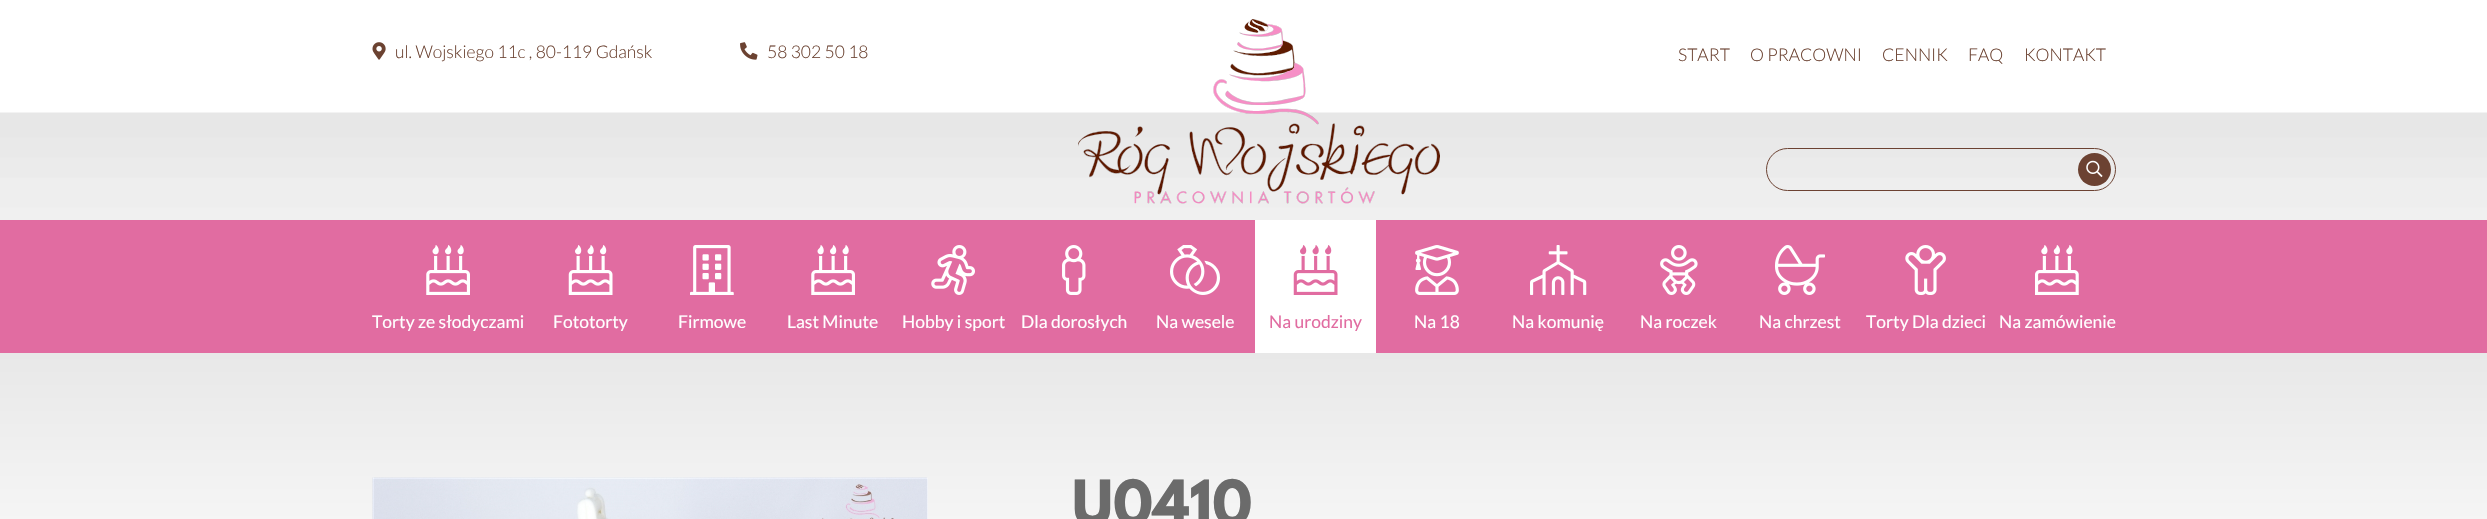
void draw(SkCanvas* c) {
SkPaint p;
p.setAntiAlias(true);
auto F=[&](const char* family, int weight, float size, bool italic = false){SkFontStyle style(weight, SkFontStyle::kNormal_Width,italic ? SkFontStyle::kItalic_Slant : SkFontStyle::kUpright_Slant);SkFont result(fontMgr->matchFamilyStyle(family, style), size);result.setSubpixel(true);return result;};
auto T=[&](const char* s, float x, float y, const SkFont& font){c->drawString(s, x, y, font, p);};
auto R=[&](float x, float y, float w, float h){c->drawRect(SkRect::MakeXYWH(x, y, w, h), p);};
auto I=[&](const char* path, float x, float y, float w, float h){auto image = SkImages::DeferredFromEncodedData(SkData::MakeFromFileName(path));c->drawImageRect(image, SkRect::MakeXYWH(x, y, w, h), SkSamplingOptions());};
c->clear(0xffffffff);
I("1.png",0,112,2487,108);
I("2.png",372,42,14,18);
auto f1 = F("Lato",300,17.5);
p.setColor(0xff6b4231);
T("ul. Wojskiego 11c , 80-119 Gdańsk",395,58,f1);
I("3.png",740,42,18,18);
T("58 302 50 18",767,58,f1);
I("4.png",1078,19,362,185);
T("START",1678,61,f1);
T("O PRACOWNI",1750,61,f1);
T("CENNIK",1882,61,f1);
T("FAQ",1968,61,f1);
T("KONTAKT",2024,61,f1);
p.setStroke(true);
p.setStrokeWidth(1);
p.setColor(0xff6c4232);
c->drawRoundRect(SkRect::MakeXYWH(1766.5,148.5,349,42),21,21,p);
p.setStroke(false);
c->drawCircle(2094.5,169.5,16.5,p);
I("5.png",2086,160,17,17);
p.setColor(0xffe16ca1);
R(0,220,2487,133);
I("6.png",426,245,44,50);
auto f2 = F("Lato",400,17.5);
p.setColor(0xffffffff);
T("Torty ze słodyczami",372,328,f2);
I("7.png",568,245,45,50);
T("Fototorty",553,328,f2);
I("8.png",690,245,44,50);
T("Firmowe",678,328,f2);
I("6.png",811,245,44,50);
T("Last Minute",787,328,f2);
I("9.png",931,245,44,50);
T("Hobby i sport",902,328,f2);
I("10.png",1062,245,24,50);
T("Dla dorosłych",1021,328,f2);
I("11.png",1170,245,50,50);
T("Na wesele",1156,328,f2);
R(1255,220,121,133);
I("12.png",1293,245,45,50);
p.setColor(0xffe16ca1);
T("Na urodziny",1269,328,f2);
I("13.png",1415,245,44,50);
p.setColor(0xffffffff);
T("Na 18",1414,328,f2);
I("14.png",1530,245,57,50);
T("Na komunię",1512,328,f2);
I("15.png",1660,245,38,50);
T("Na roczek",1640,328,f2);
I("16.png",1775,245,50,50);
T("Na chrzest",1759,328,f2);
I("17.png",1905,245,41,50);
T("Torty Dla dzieci",1866,328,f2);
I("18.png",2035,245,44,50);
T("Na zamówienie",1999,328,f2);
{
const SkColor colors[] = {0xffe8e8e8,0xfffefefe};
const float stops[] = {0,1};
const SkPoint ends[] = {{1244,352}, {1244,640}};
p.setShader(SkGradientShader::MakeLinear(ends, colors, stops, 2, SkTileMode::kClamp));
p.setAlpha(255);
}
R(0,353,2487,166);
I("19.png",372,477,556,42);
auto f3 = F("League Spartan",700,55);
p.setShader(nullptr);
p.setColor(0xff6b6b6b);
T("U0410",1072,525,f3);
}
